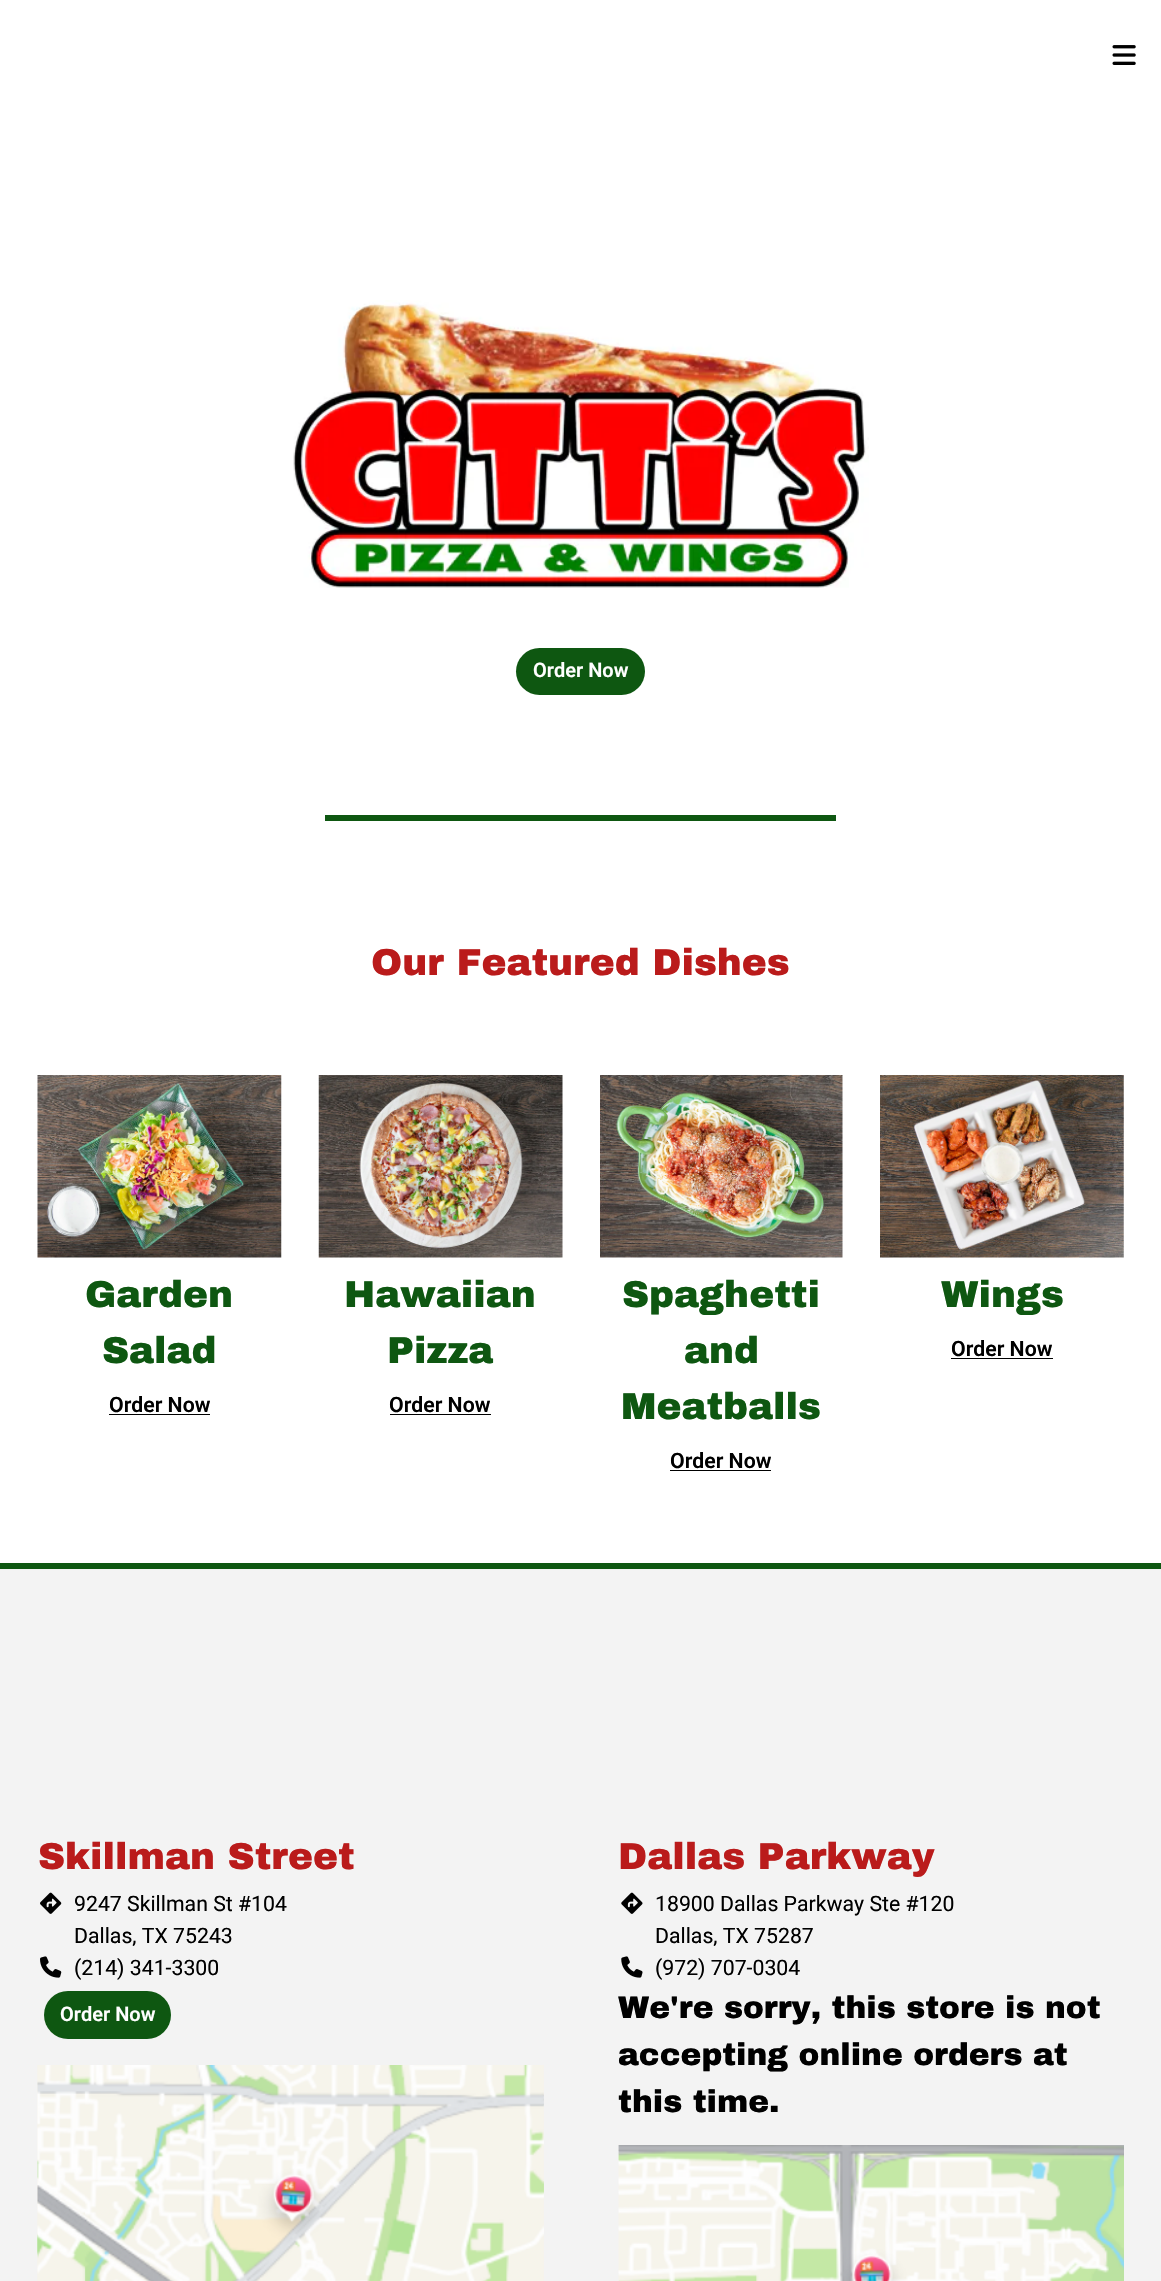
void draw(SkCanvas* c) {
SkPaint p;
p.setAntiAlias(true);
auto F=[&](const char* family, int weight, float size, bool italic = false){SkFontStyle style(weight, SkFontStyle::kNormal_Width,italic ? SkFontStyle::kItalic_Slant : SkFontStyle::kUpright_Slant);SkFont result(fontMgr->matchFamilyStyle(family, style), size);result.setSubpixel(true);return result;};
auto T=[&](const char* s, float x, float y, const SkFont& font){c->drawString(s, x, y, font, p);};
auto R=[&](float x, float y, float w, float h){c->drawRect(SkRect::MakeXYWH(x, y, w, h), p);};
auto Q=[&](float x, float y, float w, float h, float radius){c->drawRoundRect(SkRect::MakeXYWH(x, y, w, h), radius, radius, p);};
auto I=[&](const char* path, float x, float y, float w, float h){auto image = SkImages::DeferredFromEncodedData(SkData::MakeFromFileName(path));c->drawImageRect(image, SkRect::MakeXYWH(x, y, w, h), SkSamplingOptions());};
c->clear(0xffffffff);
I("1.png",1112,45,24,20);
I("2.png",293,300,576,288);
p.setColor(0xff0e5711);
Q(516,648,129,47,23.5);
auto f1 = F("Roboto",600,20);
p.setColor(0xffffffff);
T("Order Now",533,677,f1);
p.setColor(0xff0e5711);
R(325,815,511,6);
auto f2 = F("Archivo Black",900,37.5);
p.setColor(0xffba1b1b);
T("Our Featured Dishes",371,975,f2);
I("3.png",37,1075,245,183);
p.setColor(0xff0e5711);
T("Garden",85,1307,f2);
T("Salad",102,1363,f2);
auto f3 = F("Roboto",600,21.25);
p.setColor(0xff000000);
T("Order Now",109,1412,f3);
R(109,1414,101,1);
I("4.png",318,1075,245,183);
p.setColor(0xff0e5711);
T("Hawaiian",344,1307,f2);
T("Pizza",387,1363,f2);
p.setColor(0xff000000);
T("Order Now",389,1412,f3);
R(390,1414,101,1);
I("5.png",600,1075,243,183);
p.setColor(0xff0e5711);
T("Spaghetti",622,1307,f2);
T("and",684,1363,f2);
T("Meatballs",621,1419,f2);
p.setColor(0xff000000);
T("Order Now",670,1468,f3);
R(670,1470,101,1);
I("6.png",880,1075,244,183);
p.setColor(0xff0e5711);
T("Wings",941,1307,f2);
p.setColor(0xff000000);
T("Order Now",951,1356,f3);
R(951,1358,102,1);
p.setColor(0xff0e5711);
R(0,1563,1161,6);
p.setColor(0xfff3f3f3);
R(0,1569,1161,712);
p.setColor(0xffba1b1b);
T("Skillman Street",38,1869,f2);
I("7.png",40,1892,22,22);
auto f4 = F("Roboto",400,21.25);
p.setColor(0xff000000);
T("9247 Skillman St #104",74,1911,f4);
T("Dallas, TX 75243",74,1943,f4);
I("8.png",40,1956,22,22);
T("(214) 341-3300",74,1975,f4);
p.setColor(0xff0e5711);
Q(44,1991,127,48,24);
p.setColor(0xffffffff);
T("Order Now",60,2021,f1);
I("9.png",37,2065,507,216);
I("10.png",37,2065,507,216);
p.setColor(0xffba1b1b);
T("Dallas Parkway",618,1869,f2);
I("11.png",621,1892,22,22);
p.setColor(0xff000000);
T("18900 Dallas Parkway Ste #120",655,1911,f4);
T("Dallas, TX 75287",655,1943,f4);
I("12.png",621,1956,22,22);
T("(972) 707-0304",655,1975,f4);
auto f5 = F("Archivo Black",900,31.25);
T("We're sorry, this store is not",618,2018,f5);
T("accepting online orders at",618,2065,f5);
T("this time.",618,2112,f5);
I("13.png",618,2145,1,136);
I("14.png",618,2145,506,136);
}
